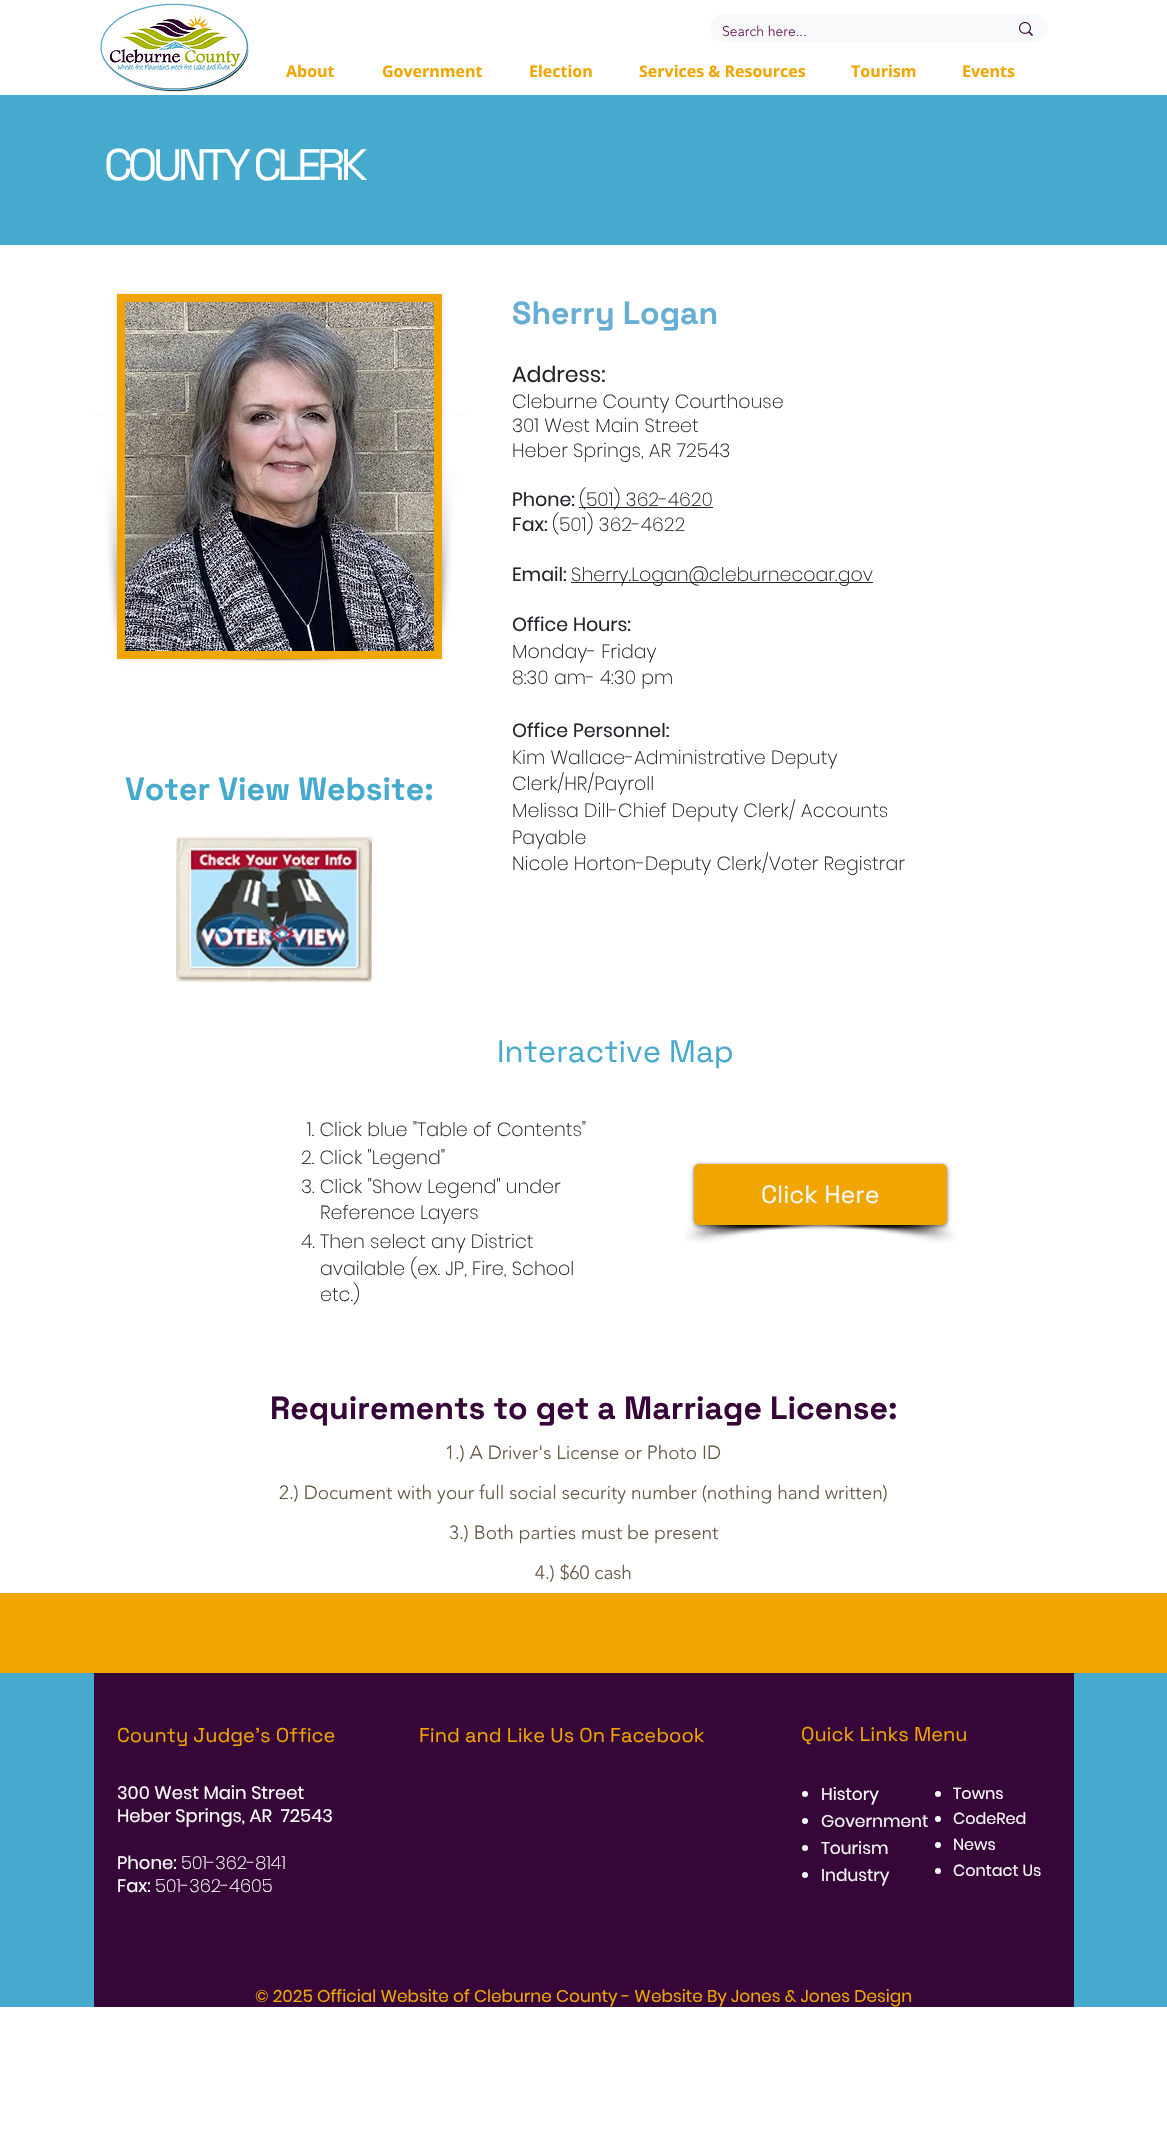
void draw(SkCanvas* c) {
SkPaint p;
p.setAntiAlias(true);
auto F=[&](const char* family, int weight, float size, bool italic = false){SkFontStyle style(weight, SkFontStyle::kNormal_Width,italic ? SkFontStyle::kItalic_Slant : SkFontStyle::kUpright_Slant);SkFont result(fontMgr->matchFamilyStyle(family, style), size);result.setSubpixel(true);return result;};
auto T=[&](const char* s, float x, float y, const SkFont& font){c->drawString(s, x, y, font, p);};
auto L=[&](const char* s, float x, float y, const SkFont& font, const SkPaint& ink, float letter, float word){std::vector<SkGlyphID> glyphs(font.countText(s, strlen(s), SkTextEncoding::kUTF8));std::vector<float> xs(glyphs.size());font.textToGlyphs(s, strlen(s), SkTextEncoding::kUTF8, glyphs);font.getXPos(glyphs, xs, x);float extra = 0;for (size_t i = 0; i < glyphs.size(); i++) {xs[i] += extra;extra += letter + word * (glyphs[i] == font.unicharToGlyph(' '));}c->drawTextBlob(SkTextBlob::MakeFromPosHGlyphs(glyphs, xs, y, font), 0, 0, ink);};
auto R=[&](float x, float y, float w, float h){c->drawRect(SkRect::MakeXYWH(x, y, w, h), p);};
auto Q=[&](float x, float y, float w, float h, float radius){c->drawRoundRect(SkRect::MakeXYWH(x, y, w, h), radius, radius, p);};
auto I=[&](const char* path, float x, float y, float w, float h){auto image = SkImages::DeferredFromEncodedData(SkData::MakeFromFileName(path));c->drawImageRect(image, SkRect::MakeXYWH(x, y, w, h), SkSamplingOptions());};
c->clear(0xffffffff);
I("1.png",100,3,149,89);
p.setColor(0xfff8f9fa);
Q(710,14,338,29,14.5);
auto f1 = F("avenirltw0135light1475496",300,14);
p.setColor(0xff6d1e61);
T("Search here...",722,36,f1);
I("2.png",1019,22,14,14);
auto f2 = F("Open Sans",700,16);
p.setColor(0xfff0a500);
T("About",286,77,f2);
T("Government",382,77,f2);
T("Election",529,77,f2);
T("Services & Resources",639,77,f2);
T("Tourism",851,77,f2);
T("Events",962,77,f2);
p.setColor(0xff46a9ce);
R(0,95,1167,150);
auto f3 = F("Space Grotesk",400,44);
p.setColor(0xffffffff);
L("COUNTY CLERK",104,180,f3,p,-4.4,0);
p.setColor(0x1a000000);
p.setMaskFilter(SkMaskFilter::MakeBlur(kNormal_SkBlurStyle, 2.5));
c->drawRect(SkRect::MakeXYWH(117,294,325,365),p);
p.setMaskFilter(nullptr);
I("3.png",93,414,24,220);
p.setColor(0xfff0a500);
R(117,294,325,365);
I("4.png",125,302,309,349);
I("5.png",185,659,188,2);
I("6.png",442,414,24,220);
auto f4 = F("Space Grotesk",700,32);
p.setColor(0xff68aed4);
T("Sherry Logan",512,324,f4);
auto f5 = F("Poppins",400,22);
p.setColor(0xff212529);
T("Address:",512,382,f5);
auto f6 = F("Poppins",200,19);
T("Cleburne County Courthouse",512,408,f6);
T("301 West Main Street",512,432,f6);
T("Heber Springs, AR 72543",512,457,f6);
auto f7 = F("Poppins",400,19);
T("Phone:",512,506,f7);
R(579,507,134,1);
T("(501) 362-4620",579,506,f6);
T("Fax:",512,531,f7);
T("(501) 362-4622",552,531,f6);
T("Email:",512,581,f7);
R(571,582,302,1);
T("Sherry.Logan@cleburnecoar.gov",571,581,f6);
T("Office Hours:",512,631,f7);
T("Monday- Friday",512,658,f6);
T("8:30 am- 4:30 pm",512,684,f6);
T("Office Personnel:",512,737,f7);
T("Kim Wallace-Administrative Deputy",512,764,f6);
T("Clerk/HR/Payroll",512,790,f6);
T("Melissa Dill-Chief Deputy Clerk/ Accounts",512,817,f6);
T("Payable",512,844,f6);
T("Nicole Horton-Deputy Clerk/Voter Registrar",512,870,f6);
p.setColor(0xff46a9ce);
T("Voter View Website:",125,800,f4);
I("7.png",176,837,196,145);
auto f8 = F("Space Grotesk",400,31);
T("Interactive Map",497,1062,f8);
p.setColor(0xff212529);
T("1. Click blue \"Table of Contents\"",307,1136,f6);
T("2. Click \"Legend\"",301,1164,f6);
T("3. Click \"Show Legend\" under",301,1193,f6);
T("Reference Layers",320,1219,f6);
T("4. Then select any District",301,1248,f6);
T("available (ex. JP, Fire, School",320,1275,f6);
T("etc.)",320,1301,f6);
I("8.png",685,1225,154,18);
I("9.png",802,1225,154,18);
p.setColor(0x99000000);
p.setMaskFilter(SkMaskFilter::MakeBlur(kNormal_SkBlurStyle, 2));
c->drawRoundRect(SkRect::MakeXYWH(694,1165,253,61),5,5,p);
p.setMaskFilter(nullptr);
p.setColor(0xfff0a500);
Q(694,1164,253,61,5);
auto f9 = F("Space Grotesk",400,25);
p.setColor(0xfff8f9fa);
T("Click Here",761,1203,f9);
p.setColor(0xff360638);
T("Requirements to get a Marriage License:",270,1419,f4);
auto f10 = F("avenirltw0135light1475496",300,19);
p.setColor(0xff645844);
T("1.) A Driver's License or Photo ID",445,1459,f10);
T("2.) Document with your full social security number (nothing hand written)",279,1499,f10);
T("3.) Both parties must be present",449,1539,f10);
T("4.) $60 cash",535,1579,f10);
p.setColor(0xfff0a500);
R(0,1593,1167,80);
p.setColor(0xff46a9ce);
R(0,1673,1167,334);
p.setColor(0xff360638);
R(94,1673,980,334);
auto f11 = F("Space Grotesk",400,20);
p.setColor(0xfff0a500);
T("County Judge's Office",117,1742,f11);
T("Find and Like Us On Facebook",419,1742,f11);
T("Quick Links Menu",801,1741,f11);
auto f12 = F("Poppins",400,18);
p.setColor(0xffffffff);
T("300 West Main Street",117,1799,f12);
T("Heber Springs, AR  72543",117,1822,f12);
T("Phone:",117,1869,f12);
auto f13 = F("Poppins",200,18);
T("501-362-8141",181,1869,f13);
T("Fax:",117,1892,f12);
T("501-362-4605",155,1892,f13);
p.setColor(0xfff8f9fa);
c->drawCircle(805,1794,3,p);
auto f14 = F("Poppins",400,17);
p.setColor(0xffffffff);
T("History",821,1800,f14);
p.setColor(0xfff8f9fa);
c->drawCircle(805,1821,3,p);
T("Government",821,1827,f14);
c->drawCircle(805,1848,3,p);
T("Tourism",821,1854,f14);
c->drawCircle(805,1875,3,p);
T("Industry",821,1881,f14);
c->drawCircle(938,1794,3,p);
auto f15 = F("Poppins",400,16);
p.setColor(0xffffffff);
T("Towns",953,1799,f15);
p.setColor(0xfff8f9fa);
c->drawCircle(938,1819,3,p);
T("CodeRed",953,1824,f15);
c->drawCircle(938,1845,3,p);
T("News",953,1850,f15);
c->drawCircle(938,1871,3,p);
T("Contact Us",953,1876,f15);
p.setColor(0xfff0a500);
T("© 2025 Official Website of Cleburne County - Website By Jones & Jones Design",255,2002,f14);
}
